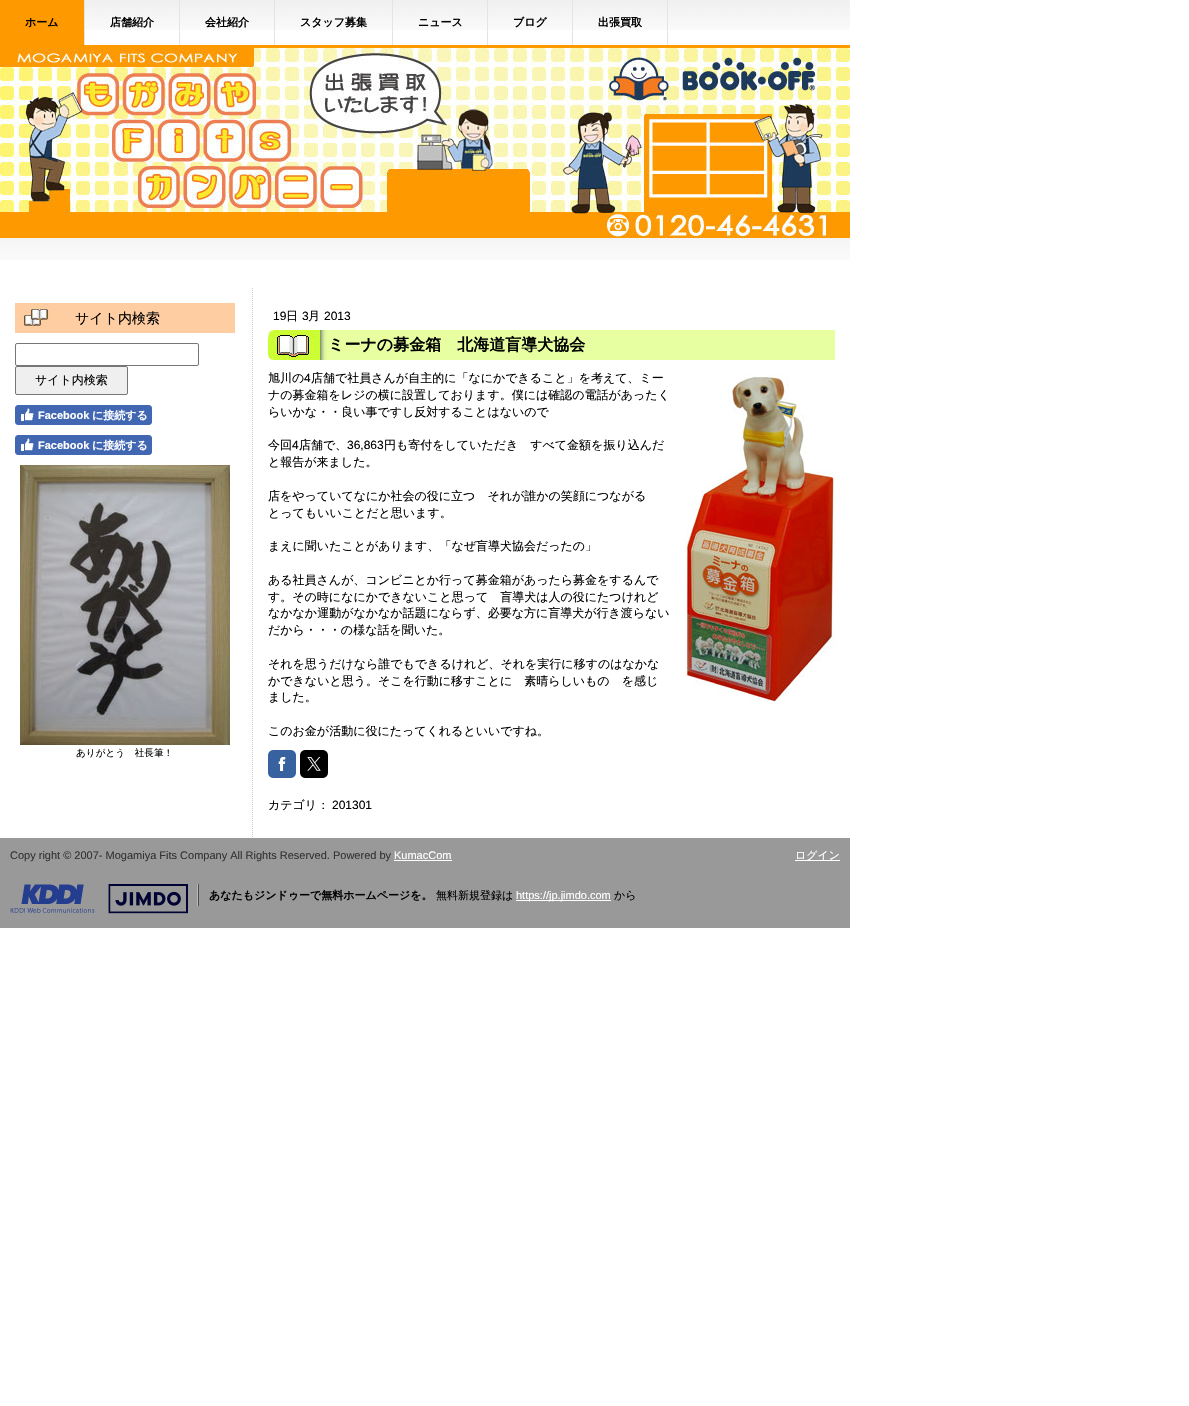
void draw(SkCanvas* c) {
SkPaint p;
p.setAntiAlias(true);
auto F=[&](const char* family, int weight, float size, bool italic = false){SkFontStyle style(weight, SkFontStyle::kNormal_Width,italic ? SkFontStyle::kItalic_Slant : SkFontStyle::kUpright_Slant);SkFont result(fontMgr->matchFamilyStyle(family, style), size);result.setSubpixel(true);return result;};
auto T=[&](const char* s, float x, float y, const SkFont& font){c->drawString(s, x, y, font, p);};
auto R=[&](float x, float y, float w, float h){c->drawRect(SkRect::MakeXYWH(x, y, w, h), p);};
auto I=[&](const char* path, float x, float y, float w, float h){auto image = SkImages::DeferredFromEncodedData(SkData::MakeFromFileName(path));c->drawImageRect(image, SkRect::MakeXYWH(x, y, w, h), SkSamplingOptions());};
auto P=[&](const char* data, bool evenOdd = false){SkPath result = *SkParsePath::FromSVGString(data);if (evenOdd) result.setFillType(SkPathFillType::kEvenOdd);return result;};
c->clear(0xffffffff);
I("1.png",85,0,765,30);
p.setColor(0xffff9900);
R(0,45,850,3);
R(0,0,84,45);
p.setColor(0xffe4e4e4);
R(84,0,1,45);
auto f1 = F("WenQuanYi Zen Hei",700,11);
p.setColor(0xff000000);
T("ホーム",25,26,f1);
p.setColor(0xffe4e4e4);
R(179,0,1,45);
p.setColor(0xff000000);
T("店舗紹介",110,26,f1);
p.setColor(0xffe4e4e4);
R(274,0,1,45);
p.setColor(0xff000000);
T("会社紹介",205,26,f1);
p.setColor(0xffe4e4e4);
R(392,0,1,45);
p.setColor(0xff000000);
T("スタッフ募集",300,26,f1);
p.setColor(0xffe4e4e4);
R(487,0,1,45);
p.setColor(0xff000000);
T("ニュース",418,26,f1);
p.setColor(0xffe4e4e4);
R(572,0,1,45);
p.setColor(0xff000000);
T("ブログ",513,26,f1);
p.setColor(0xffe4e4e4);
R(667,0,1,45);
p.setColor(0xff000000);
T("出張買取",598,26,f1);
I("2.png",0,48,850,190);
I("3.png",0,238,850,22);
I("4.png",15,303,220,30);
auto f2 = F("WenQuanYi Zen Hei",500,14);
T("サイト内検索",75,323,f2);
p.setStroke(true);
p.setStrokeWidth(1);
p.setColor(0xff767676);
c->drawRoundRect(SkRect::MakeXYWH(15.5,343.5,183,22),1.5,1.5,p);
p.setStroke(false);
p.setColor(0xffefefef);
c->drawRoundRect(SkRect::MakeXYWH(15.5,366.5,112,28),1.5,1.5,p);
p.setStroke(true);
p.setColor(0xff767676);
c->drawRoundRect(SkRect::MakeXYWH(15.5,366.5,112,28),1.5,1.5,p);
auto f3 = F("WenQuanYi Zen Hei",500,12);
p.setStroke(false);
p.setColor(0xff000000);
T("サイト内検索",35,384,f3);
p.setColor(0xff4267b2);
c->drawRoundRect(SkRect::MakeXYWH(15.5,405.5,136,19),2.5,2.5,p);
p.setStroke(true);
c->drawRoundRect(SkRect::MakeXYWH(15.5,405.5,136,19),2.5,2.5,p);
I("5.png",21,408,13,13);
auto f4 = F("Liberation Sans",700,11);
p.setStroke(false);
p.setColor(0xffffffff);
T("Facebook",38,419,f4);
T("に接続する",92,419,f1);
p.setColor(0xff4267b2);
c->drawRoundRect(SkRect::MakeXYWH(15.5,435.5,136,19),2.5,2.5,p);
p.setStroke(true);
c->drawRoundRect(SkRect::MakeXYWH(15.5,435.5,136,19),2.5,2.5,p);
I("5.png",21,438,13,13);
p.setStroke(false);
p.setColor(0xffffffff);
T("Facebook",38,449,f4);
T("に接続する",92,449,f1);
I("6.png",20,465,210,280);
auto f5 = F("WenQuanYi Zen Hei",500,9.6);
p.setColor(0xff000000);
T("ありがとう　社長筆！",76,756,f5);
p.setStroke(true);
p.setColor(0xffcccccc);
p.setPathEffect(SkDashPathEffect::Make({{1,1}}, 0));
c->drawPath(P("M252.5 288v550"),p);
p.setPathEffect(nullptr);
auto f6 = F("Liberation Sans",400,12);
p.setStroke(false);
p.setColor(0xff000000);
T("19",273,320,f6);
T("日",286,320,f3);
T("3",302,320,f6);
T("月",308,320,f3);
T("2013",324,320,f6);
I("7.png",268,330,567,30);
auto f7 = F("WenQuanYi Zen Hei",700,16);
T("ミーナの募金箱　北海道盲導犬協会",328,350,f7);
T("旭川の",268,382,f3);
T("4",304,382,f6);
T("店舗で社員さんが自主的に「なにかできること」を考えて、ミー",311,382,f3);
T("ナの募金箱をレジの横に設置しております。僕には確認の電話があったく",268,399,f3);
T("らいかな・・良い事ですし反対することはないので",268,416,f3);
T("今回",268,449,f3);
T("4",292,449,f6);
T("店舗で、",299,449,f3);
T("36,863",347,449,f6);
T("円も寄付をしていただき　すべて金額を振り込んだ",384,449,f3);
T("と報告が来ました。",268,466,f3);
T("店をやっていてなにか社会の役に立つ　それが誰かの笑顔につながる",268,500,f3);
T("とってもいいことだと思います。",268,517,f3);
T("まえに聞いたことがあります、「なぜ盲導犬協会だったの」",268,550,f3);
T("ある社員さんが、コンビニとか行って募金箱があったら募金をするんで",268,584,f3);
T("す。その時になにかできないこと思って　盲導犬は人の役にたつけれど",268,601,f3);
T("なかなか運動がなかなか話題にならず、必要な方に盲導犬が行き渡らない",268,617,f3);
T("だから・・・の様な話を聞いた。",268,634,f3);
T("それを思うだけなら誰でもできるけれど、それを実行に移すのはなかな",268,668,f3);
T("かできないと思う。そこを行動に移すことに　素晴らしいもの　を感じ",268,685,f3);
T("ました。",268,701,f3);
T("このお金が活動に役にたってくれるといいですね。",268,735,f3);
I("8.png",685,374,150,328);
I("9.png",268,750,28,28);
I("10.png",278,757,8,14);
I("11.png",300,750,28,28);
I("12.png",307,757,14,14);
T("カテゴリ：",268,809,f3);
T("201301",332,809,f6);
p.setColor(0xff999999);
R(0,838,850,90);
auto f8 = F("Liberation Sans",400,11);
p.setColor(0xff333333);
T("Copy right © 2007- Mogamiya Fits Company All Rights Reserved. Powered by",10,859,f8);
p.setColor(0xffffffff);
T("KumacCom",394,859,f8);
R(394,860,58,1);
R(795,860,45,1);
auto f9 = F("WenQuanYi Zen Hei",500,11);
T("ログイン",795,859,f9);
I("13.png",10,884,178,30);
p.setColor(0xffb8b8b8);
R(197,884,1,22);
p.setColor(0xff4d4d4d);
R(198,884,1,22);
p.setColor(0xff000000);
T("あなたもジンドゥーで無料ホームページを。",209,899,f1);
T("無料新規登録は",436,899,f9);
p.setColor(0xffffffff);
R(516,900,95,1);
T("https://jp.jimdo.com",516,899,f8);
p.setColor(0xff000000);
T("から",614,899,f9);
}
